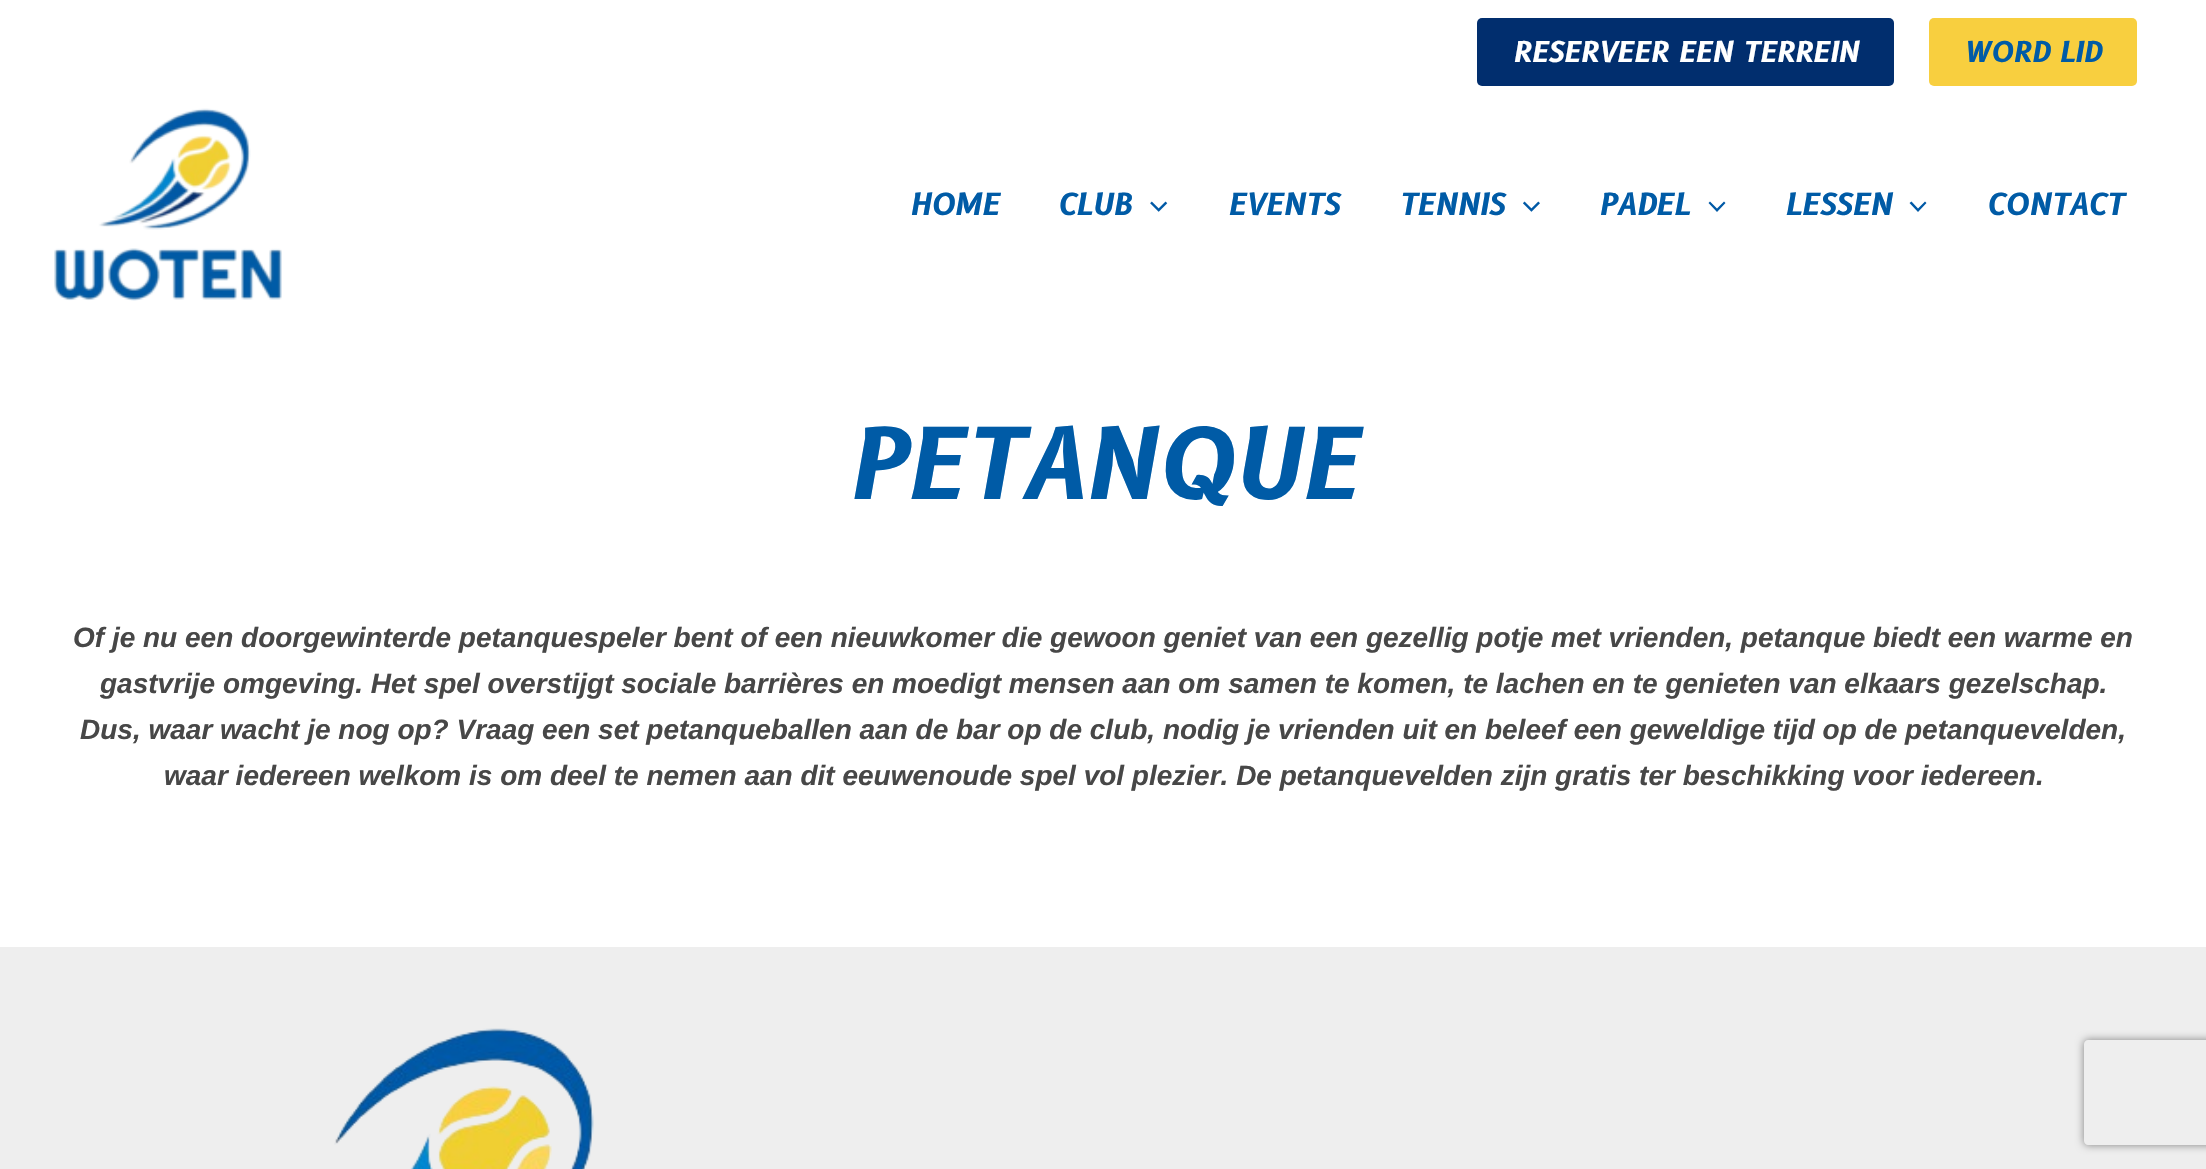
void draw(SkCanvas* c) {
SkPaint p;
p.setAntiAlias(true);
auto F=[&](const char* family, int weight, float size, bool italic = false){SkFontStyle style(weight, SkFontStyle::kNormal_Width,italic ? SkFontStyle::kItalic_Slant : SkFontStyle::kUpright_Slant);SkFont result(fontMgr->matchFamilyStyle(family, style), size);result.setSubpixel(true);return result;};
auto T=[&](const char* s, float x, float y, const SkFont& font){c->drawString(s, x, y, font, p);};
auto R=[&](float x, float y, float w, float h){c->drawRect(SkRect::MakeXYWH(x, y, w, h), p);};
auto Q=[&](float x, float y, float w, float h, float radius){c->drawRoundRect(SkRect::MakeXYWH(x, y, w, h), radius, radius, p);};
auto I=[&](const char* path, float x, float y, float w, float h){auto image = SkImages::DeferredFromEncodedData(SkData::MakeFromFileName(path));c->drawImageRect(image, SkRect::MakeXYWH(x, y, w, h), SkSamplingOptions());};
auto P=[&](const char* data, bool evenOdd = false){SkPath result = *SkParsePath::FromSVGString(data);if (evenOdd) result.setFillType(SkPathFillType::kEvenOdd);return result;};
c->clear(0xffffffff);
p.setColor(0xff012e6e);
Q(1477,18,417,68,5);
auto f1 = F("B612",700,28,true);
p.setColor(0xffffffff);
T("RESERVEER EEN TERREIN",1513,62,f1);
p.setColor(0xfff8cf3f);
Q(1929,18,208,68,5);
p.setColor(0xff005ba6);
T("WORD LID",1964,62,f1);
I("1.png",54,108,228,193);
auto f2 = F("B612",700,29.75,true);
T("HOME",910,215,f2);
T("CLUB",1058,215,f2);
I("2.png",1150,201,18,11);
T("EVENTS",1228,215,f2);
T("TENNIS",1399,215,f2);
I("3.png",1523,201,17,11);
T("PADEL",1599,215,f2);
p.setColor(0xff0059a6);
c->drawPath(P("M1708.5 203l8.5 9l8.5-9l-1.5-1.5l-7 7l-7-7z"),p);
p.setColor(0xff005ba6);
T("LESSEN",1785,215,f2);
p.setColor(0xff0059a6);
c->drawPath(P("M1909.5 203l8.5 9l8.5-9l-1.5-1.5l-7 7l-6.5-7z"),p);
p.setColor(0xff005ba6);
T("CONTACT",1987,215,f2);
auto f3 = F("B612",700,96.25,true);
T("PETANQUE",848,499,f3);
auto f4 = F("Liberation Sans",700,28,true);
p.setColor(0xff474747);
T("Of je nu een doorgewinterde petanquespeler bent of een nieuwkomer die gewoon geniet van een gezellig potje met vrienden, petanque biedt een warme en",73,647,f4);
T("gastvrije omgeving. Het spel overstijgt sociale barrières en moedigt mensen aan om samen te komen, te lachen en te genieten van elkaars gezelschap.",100,693,f4);
T("Dus, waar wacht je nog op? Vraag een set petanqueballen aan de bar op de club, nodig je vrienden uit en beleef een geweldige tijd op de petanquevelden,",80,739,f4);
T("waar iedereen welkom is om deel te nemen aan dit eeuwenoude spel vol plezier. De petanquevelden zijn gratis ter beschikking voor iedereen.",164,785,f4);
p.setColor(0xffeeeeee);
R(0,947,2206,222);
I("4.png",334,1028,260,141);
c->save();
c->clipPath(P("M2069 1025h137v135h-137zm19 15h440c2 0 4 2 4 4v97c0 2-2 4-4 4h-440c-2 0-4-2-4-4v-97c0-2 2-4 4-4z",true),true);
p.setColor(0xff808080);
p.setMaskFilter(SkMaskFilter::MakeBlur(kNormal_SkBlurStyle, 4.5));
c->drawRoundRect(SkRect::MakeXYWH(2084,1040,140,105),4,4,p);
p.setMaskFilter(nullptr);
c->restore();
}
